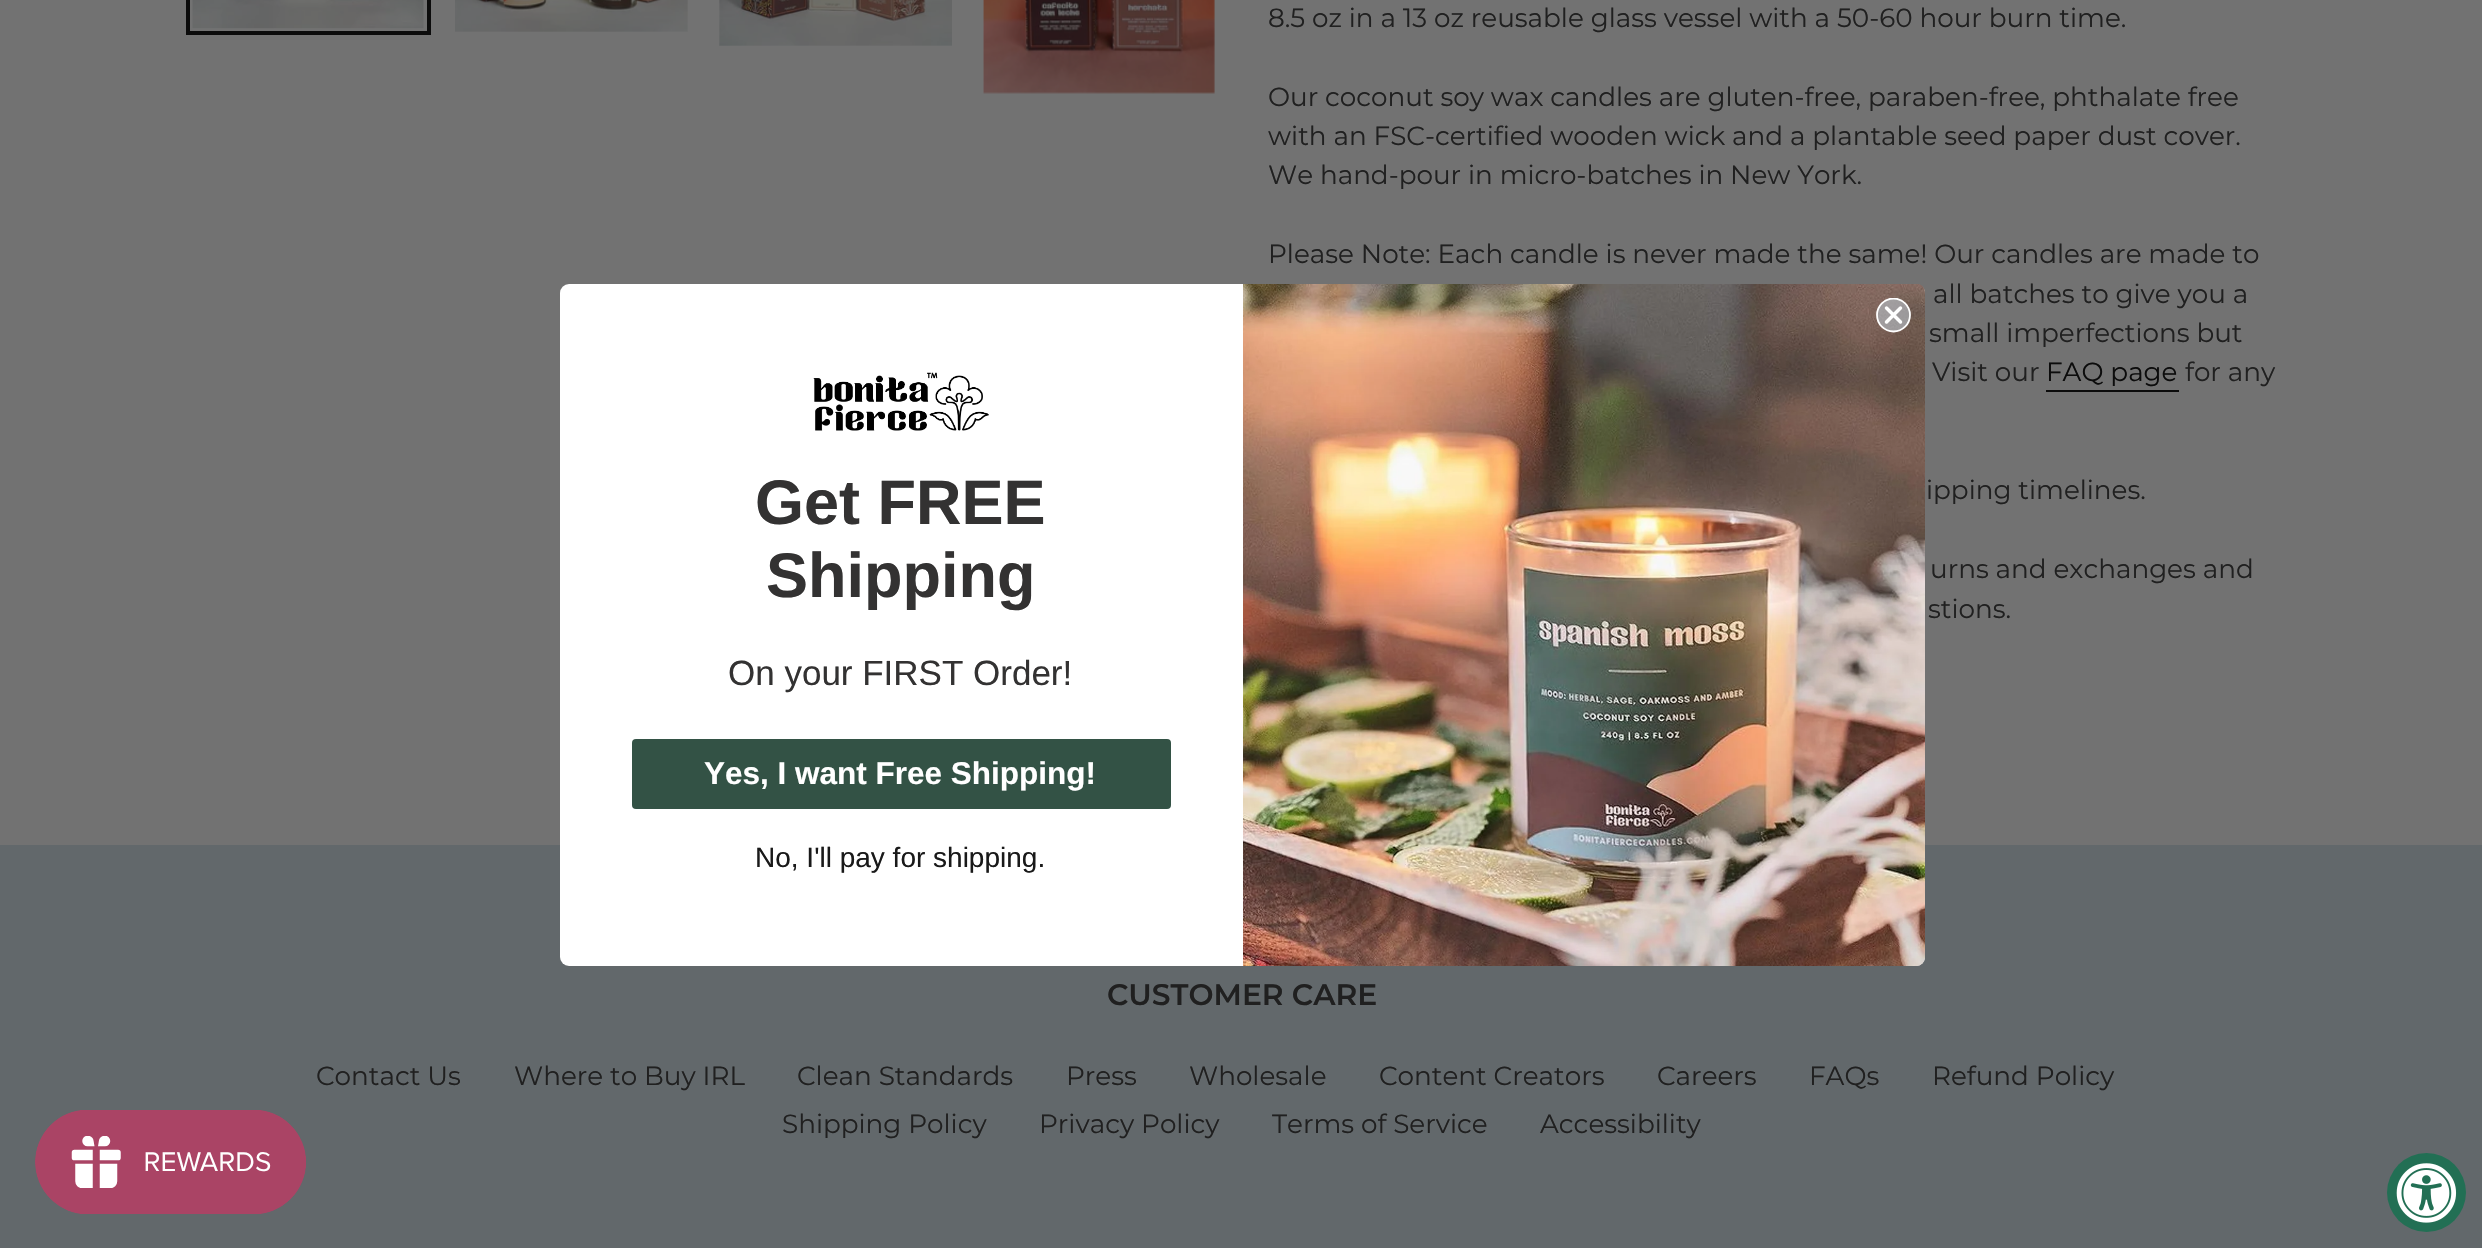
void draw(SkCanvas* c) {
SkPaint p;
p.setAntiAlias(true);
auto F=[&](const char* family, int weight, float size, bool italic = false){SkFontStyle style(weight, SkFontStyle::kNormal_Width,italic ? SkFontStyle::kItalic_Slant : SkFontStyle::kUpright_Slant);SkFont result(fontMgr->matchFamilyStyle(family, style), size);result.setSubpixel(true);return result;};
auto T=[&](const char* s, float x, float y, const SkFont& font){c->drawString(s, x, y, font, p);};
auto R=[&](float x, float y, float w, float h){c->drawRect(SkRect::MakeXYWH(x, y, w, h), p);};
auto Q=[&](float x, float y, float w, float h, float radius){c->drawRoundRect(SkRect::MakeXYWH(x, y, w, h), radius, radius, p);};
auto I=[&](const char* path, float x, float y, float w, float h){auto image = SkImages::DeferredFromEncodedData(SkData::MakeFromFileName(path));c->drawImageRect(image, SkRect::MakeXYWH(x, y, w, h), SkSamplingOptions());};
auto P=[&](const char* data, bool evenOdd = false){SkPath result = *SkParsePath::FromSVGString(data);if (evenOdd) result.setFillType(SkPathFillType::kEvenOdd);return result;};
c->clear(0xff727272);
p.setStroke(true);
p.setStrokeWidth(4);
p.setColor(0xff0c0c0c);
c->drawRect(SkRect::MakeXYWH(188,-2,241,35),p);
I("1.png",192,0,232,29);
I("2.png",455,0,233,32);
I("3.png",719,0,233,46);
I("4.png",983,0,232,94);
auto f1 = F("Montserrat",400,26.25);
p.setStroke(false);
p.setColor(0xff202020);
T("8.5 oz in a 13 oz reusable glass vessel with a 50-60 hour burn time.",1268,27,f1);
T("Our coconut soy wax candles are gluten-free, paraben-free, phthalate free",1268,106,f1);
T("with an FSC-certified wooden wick and a plantable seed paper dust cover.",1268,145,f1);
T("We hand-pour in micro-batches in New York.",1268,184,f1);
T("Please Note: Each candle is never made the same! Our candles are made to",1268,263,f1);
T("all batches to give you a",1933,303,f1);
T("small imperfections but",1929,342,f1);
T("Visit our",1932,381,f1);
p.setColor(0xff0c0c0c);
T("FAQ page",2046,381,f1);
R(2046,390,133,2);
p.setColor(0xff202020);
T("for any",2185,381,f1);
T("ipping timelines.",1926,499,f1);
T("urns and exchanges and",1930,578,f1);
T("stions.",1928,618,f1);
p.setColor(0xff62686b);
R(0,845,2482,403);
auto f2 = F("Montserrat",600,29.75);
p.setColor(0xff202020);
T("CUSTOMER CARE",1107,1005,f2);
T("Contact Us",316,1085,f1);
T("Where to Buy IRL",514,1085,f1);
T("Clean Standards",797,1085,f1);
T("Press",1066,1085,f1);
T("Wholesale",1189,1085,f1);
T("Content Creators",1379,1085,f1);
T("Careers",1657,1085,f1);
T("FAQs",1809,1085,f1);
T("Refund Policy",1932,1085,f1);
T("Shipping Policy",782,1133,f1);
T("Privacy Policy",1039,1133,f1);
T("Terms of Service",1272,1133,f1);
T("Accessibility",1540,1133,f1);
p.setColor(0xffffffff);
Q(560,284,1365,682,9);
I("6.png",1243,284,682,682);
p.setColor(0xa6b4bbc3);
c->drawCircle(1893.5,315,16.5,p);
c->save();
c->clipRect(SkRect::MakeXYWH(1876,298,35,35));
p.setStroke(true);
p.setStrokeWidth(1.8);
p.setColor(0xffffffff);
c->drawCircle(1893.5,315,16.5,p);
c->restore();
p.setStrokeWidth(3.5);
p.setStrokeCap(SkPaint::kRound_Cap);
p.setStrokeJoin(SkPaint::kRound_Join);
c->drawPath(P("M1886.5 308l14 14m-14 0l14-14z"),p);
I("5.png",813,372,176,59);
auto f3 = F("Liberation Sans",700,63);
p.setStroke(false);
p.setColor(0xff333232);
T("Get FREE",755,524,f3);
T("Shipping",766,597,f3);
auto f4 = F("Liberation Sans",400,35);
T("On your FIRST Order!",728,685,f4);
p.setColor(0xff335245);
Q(632,739,539,70,4);
auto f5 = F("Liberation Sans",700,31.5);
p.setColor(0xffffffff);
T("Yes, I want Free Shipping!",704,784,f5);
auto f6 = F("Liberation Sans",400,28);
p.setColor(0xff191919);
T("No, I'll pay for shipping.",755,867,f6);
I("7.png",35,1110,271,104);
p.setColor(0xff226f54);
c->drawCircle(2426.5,1192.5,39.5,p);
I("8.png",2396,1163,61,60);
}
